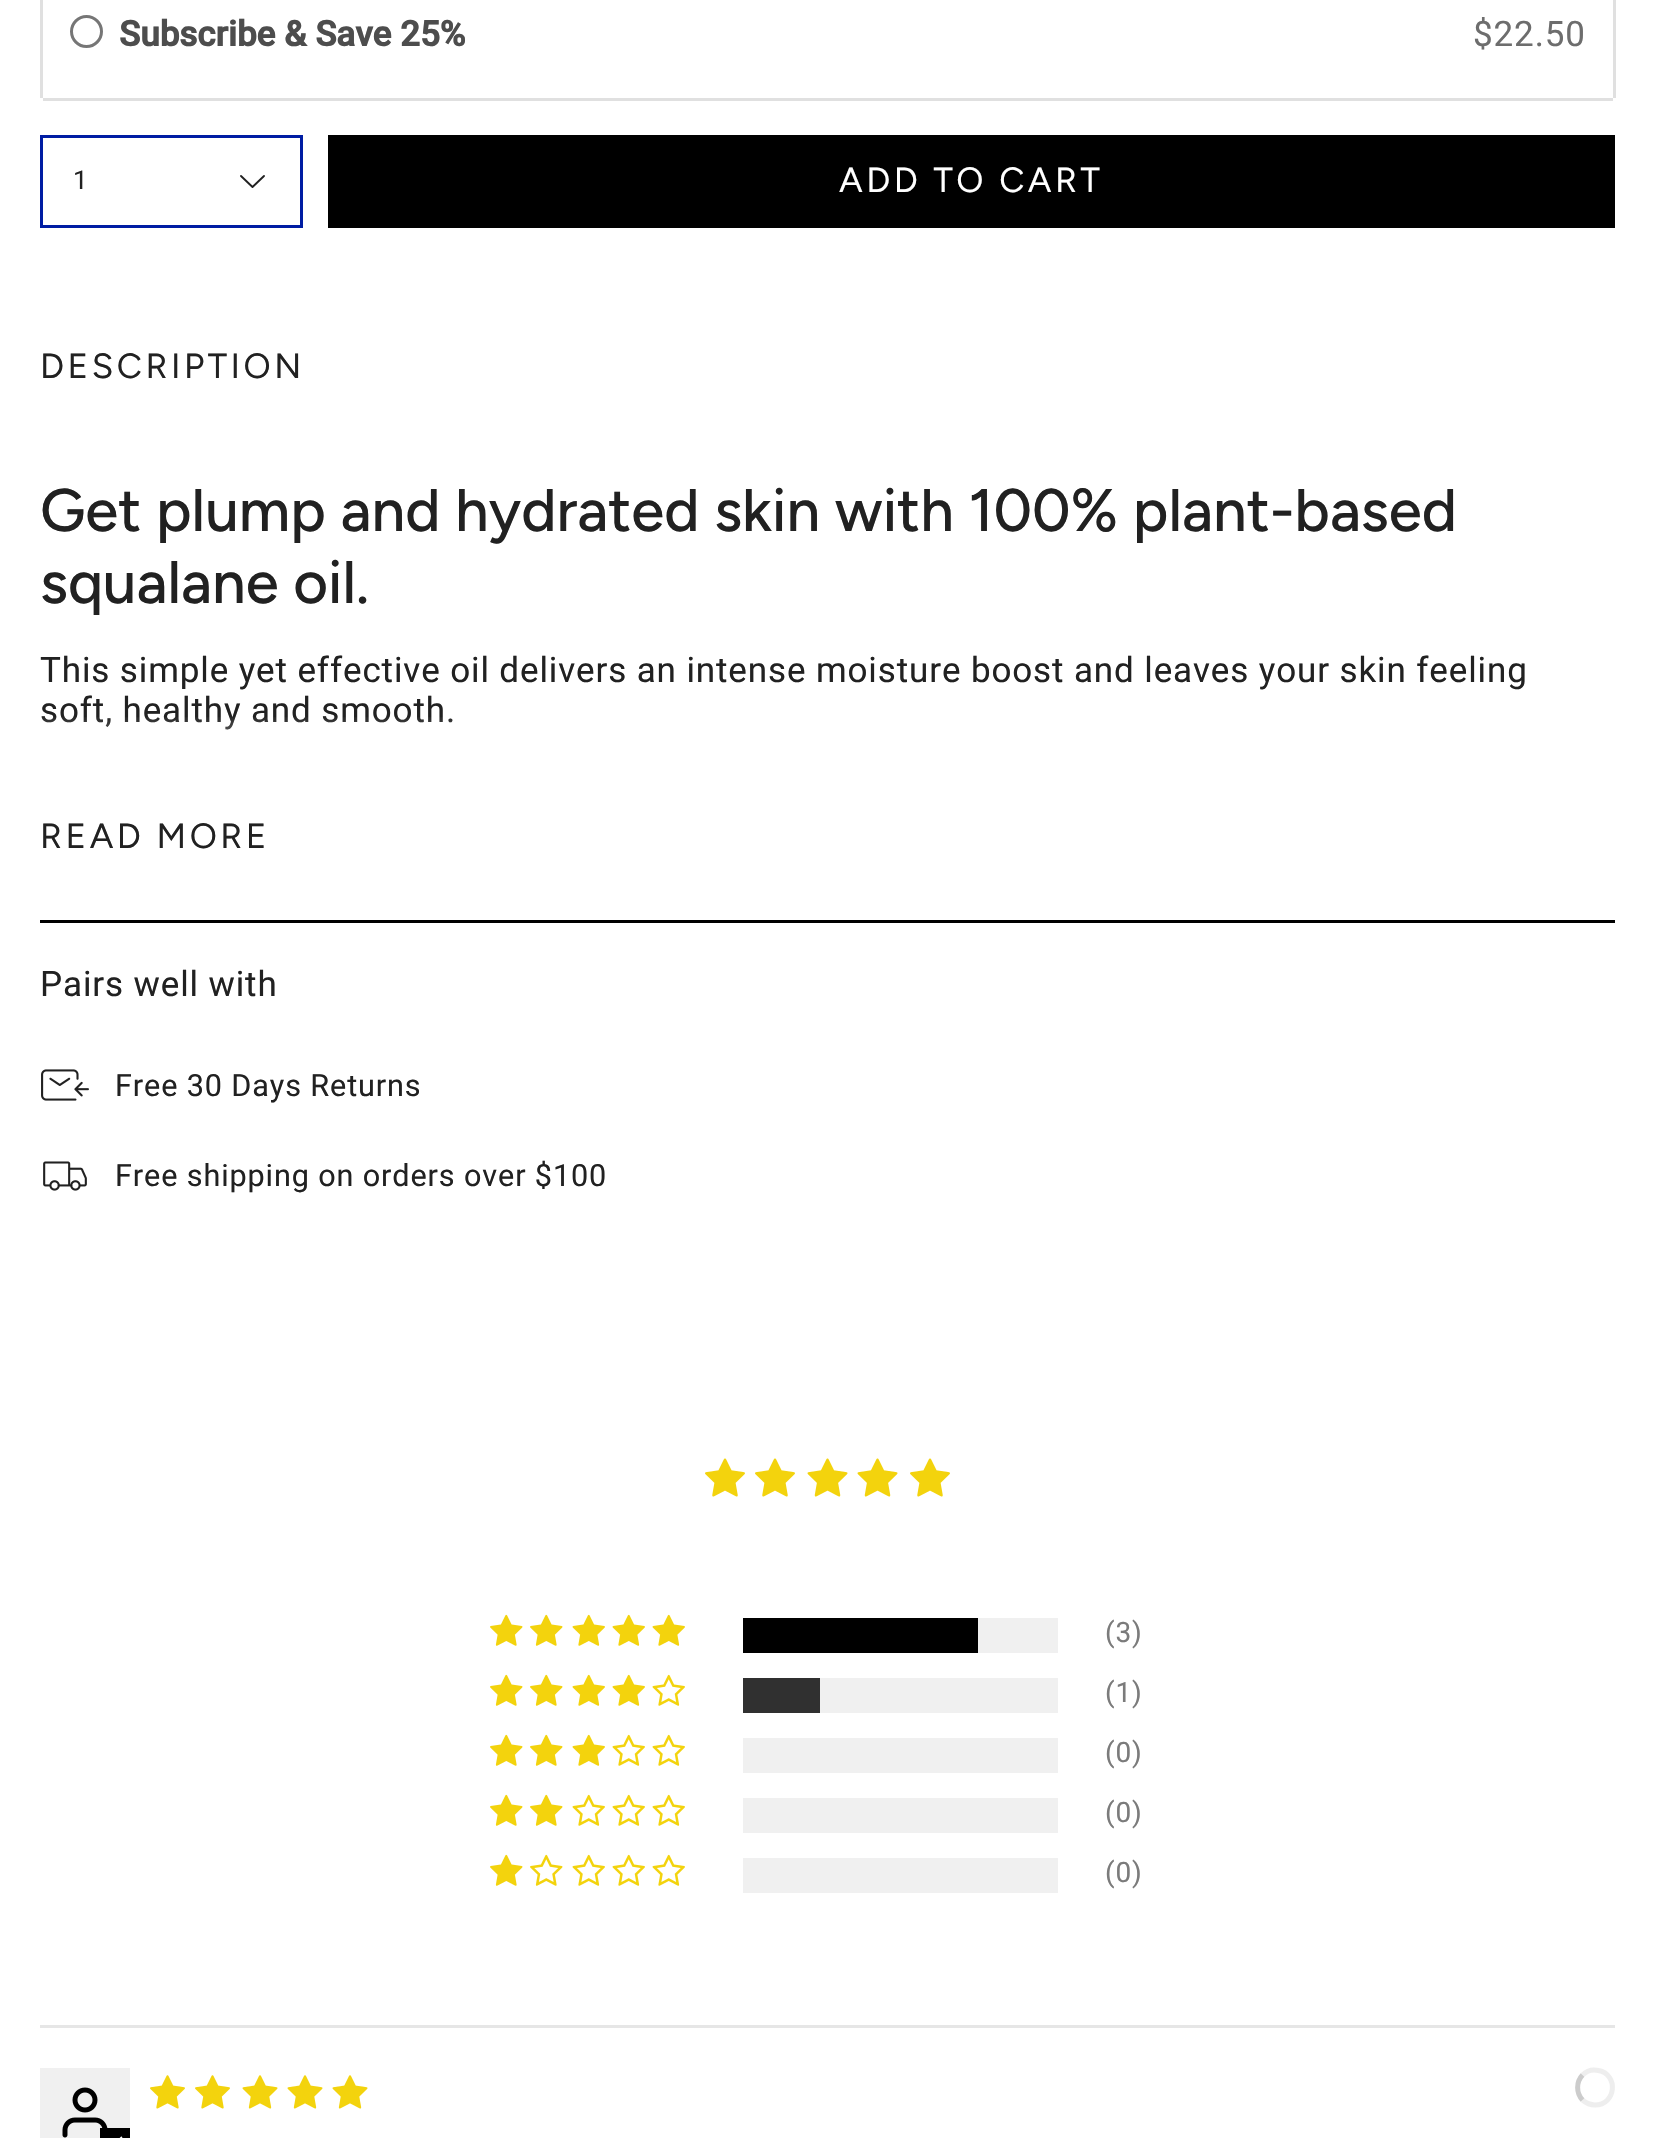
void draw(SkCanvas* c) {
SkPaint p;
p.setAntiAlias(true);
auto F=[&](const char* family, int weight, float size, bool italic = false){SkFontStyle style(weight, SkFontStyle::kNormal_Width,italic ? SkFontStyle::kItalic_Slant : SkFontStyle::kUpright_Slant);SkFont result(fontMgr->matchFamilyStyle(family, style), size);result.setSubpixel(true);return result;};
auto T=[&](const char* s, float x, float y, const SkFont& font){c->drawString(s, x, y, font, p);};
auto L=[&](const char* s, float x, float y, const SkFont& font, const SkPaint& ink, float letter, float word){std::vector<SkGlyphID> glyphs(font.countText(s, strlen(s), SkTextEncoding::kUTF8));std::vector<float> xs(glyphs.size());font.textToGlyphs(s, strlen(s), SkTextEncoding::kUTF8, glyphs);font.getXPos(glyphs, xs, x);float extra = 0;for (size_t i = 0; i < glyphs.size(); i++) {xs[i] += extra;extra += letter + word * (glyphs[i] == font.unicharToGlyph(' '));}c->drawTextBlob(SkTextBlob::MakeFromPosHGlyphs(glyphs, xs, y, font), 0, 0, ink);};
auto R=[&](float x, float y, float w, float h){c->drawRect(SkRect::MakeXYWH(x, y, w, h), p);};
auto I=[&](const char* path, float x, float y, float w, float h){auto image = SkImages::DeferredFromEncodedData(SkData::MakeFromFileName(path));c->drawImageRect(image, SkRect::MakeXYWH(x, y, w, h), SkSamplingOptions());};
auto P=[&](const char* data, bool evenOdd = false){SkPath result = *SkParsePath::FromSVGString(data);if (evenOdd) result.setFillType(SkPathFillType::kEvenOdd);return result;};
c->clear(0xffffffff);
p.setColor(0xffe0e0e0);
R(1613,0,3,98);
R(40,0,3,98);
R(43,98,1570,3);
p.setStroke(true);
p.setStrokeWidth(3);
p.setColor(0xff767676);
c->drawCircle(86.5,31.5,15,p);
auto f1 = F("Roboto",700,35);
p.setStroke(false);
p.setColor(0xff4d4d4d);
T("Subscribe & Save 25%",119,46,f1);
auto f2 = F("Roboto",400,35);
p.setColor(0xff6d6d6d);
L("$22.50",1473,46,f2,p,.88,0);
p.setStroke(true);
p.setColor(0xff001da3);
c->drawRect(SkRect::MakeXYWH(41.5,136.5,260,90),p);
auto f3 = F("Roboto",400,26);
p.setStroke(false);
p.setColor(0xff212121);
T("1",73,189,f3);
p.setStroke(true);
p.setStrokeWidth(1.9);
p.setStrokeCap(SkPaint::kRound_Cap);
p.setStrokeJoin(SkPaint::kRound_Join);
c->drawPath(P("M241 176l11.5 11l11.5-11"),p);
p.setStroke(false);
p.setColor(0xff000000);
R(328,135,1287,93);
auto f4 = F("Figtree",400,35);
p.setColor(0xffffffff);
L("ADD TO CART",839,192,f4,p,3.5,0);
p.setColor(0xff212121);
L("DESCRIPTION",40,378,f4,p,3.5,0);
auto f5 = F("Figtree",500,60);
T("Get plump and hydrated skin with 100% plant-based",40,531,f5);
T("squalane oil.",40,603,f5);
L("This simple yet effective oil delivers an intense moisture boost and leaves your skin feeling",40,682,f2,p,.88,0);
L("soft, healthy and smooth.",40,722,f2,p,.88,0);
{
const SkColor colors[] = {0x00ffffff,0xffffffff};
const float stops[] = {0,1};
const SkPoint ends[] = {{809,715}, {809,790}};
p.setShader(SkGradientShader::MakeLinear(ends, colors, stops, 2, SkTileMode::kClamp));
p.setAlpha(255);
}
R(42,717,410,13);
p.setShader(nullptr);
p.setColor(0xff212121);
L("READ MORE",40,848,f4,p,3.5,0);
p.setColor(0xff000000);
R(40,920,1575,3);
p.setColor(0xff212121);
L("Pairs well with",40,996,f2,p,.88,0);
I("1.png",41,1069,48,32);
auto f6 = F("Roboto",400,30.6);
L("Free 30 Days Returns",115,1096,f6,p,.88,0);
I("2.png",43,1161,44,30);
L("Free shipping on orders over $100",115,1186,f6,p,.88,0);
I("3.png",705,1458,40,39);
I("3.png",755,1458,40,39);
I("4.png",807,1458,41,39);
I("4.png",857,1458,41,39);
I("3.png",910,1458,40,39);
I("5.png",490,1614,33,32);
I("5.png",530,1614,33,32);
I("6.png",572,1614,33,32);
I("6.png",612,1614,33,32);
I("6.png",652,1614,33,32);
p.setColor(0xfff0f0f0);
R(978,1618,80,35);
p.setColor(0xff000000);
R(743,1618,235,35);
auto f7 = F("Roboto",400,28);
p.setColor(0xff7b7b7b);
L("(3)",1105,1642,f7,p,.88,0);
I("5.png",490,1674,33,32);
I("5.png",530,1674,33,32);
I("6.png",572,1674,33,32);
I("6.png",612,1674,33,32);
I("7.png",652,1674,33,32);
p.setColor(0xfff0f0f0);
R(820,1678,238,35);
p.setColor(0xff303030);
R(743,1678,77,35);
p.setColor(0xff7b7b7b);
L("(1)",1105,1702,f7,p,.88,0);
I("5.png",490,1734,33,32);
I("5.png",530,1734,33,32);
I("6.png",572,1734,33,32);
I("7.png",612,1734,33,32);
I("7.png",652,1734,33,32);
p.setColor(0xfff0f0f0);
R(743,1738,315,35);
p.setColor(0xff7b7b7b);
L("(0)",1105,1762,f7,p,.88,0);
I("5.png",490,1794,33,32);
I("5.png",530,1794,33,32);
I("7.png",572,1794,33,32);
I("7.png",612,1794,33,32);
I("7.png",652,1794,33,32);
p.setColor(0xfff0f0f0);
R(743,1798,315,35);
p.setColor(0xff7b7b7b);
L("(0)",1105,1822,f7,p,.88,0);
I("5.png",490,1854,33,32);
I("8.png",530,1854,33,32);
I("7.png",572,1854,33,32);
I("7.png",612,1854,33,32);
I("7.png",652,1854,33,32);
p.setColor(0xfff0f0f0);
R(743,1858,315,35);
p.setColor(0xff7b7b7b);
L("(0)",1105,1882,f7,p,.88,0);
p.setColor(0xffe6e6e6);
R(40,2025,1575,3);
p.setColor(0xfff0f0f0);
R(40,2068,90,70);
I("9.png",62,2087,46,51);
p.setColor(0xff000000);
R(100,2128,30,10);
I("10.png",119,2136,4,2);
I("11.png",150,2075,35,34);
I("11.png",195,2075,35,34);
I("12.png",242,2075,36,34);
I("12.png",287,2075,36,34);
I("12.png",332,2075,36,34);
p.setStroke(true);
p.setStrokeWidth(5);
p.setStrokeCap(SkPaint::kButt_Cap);
p.setStrokeJoin(SkPaint::kMiter_Join);
p.setColor(0xffeeeeee);
c->drawPath(P("M1582.5 2075c4-4 10-6 16-4.5c20.5 4 17.5 34.5-3.5 34.5c-4.5 0-9-2-12.5-5"),p);
p.setColor(0xffcccccc);
c->drawPath(P("M1582.5 2100c-6.5-7-6.5-18 0-25"),p);
}
